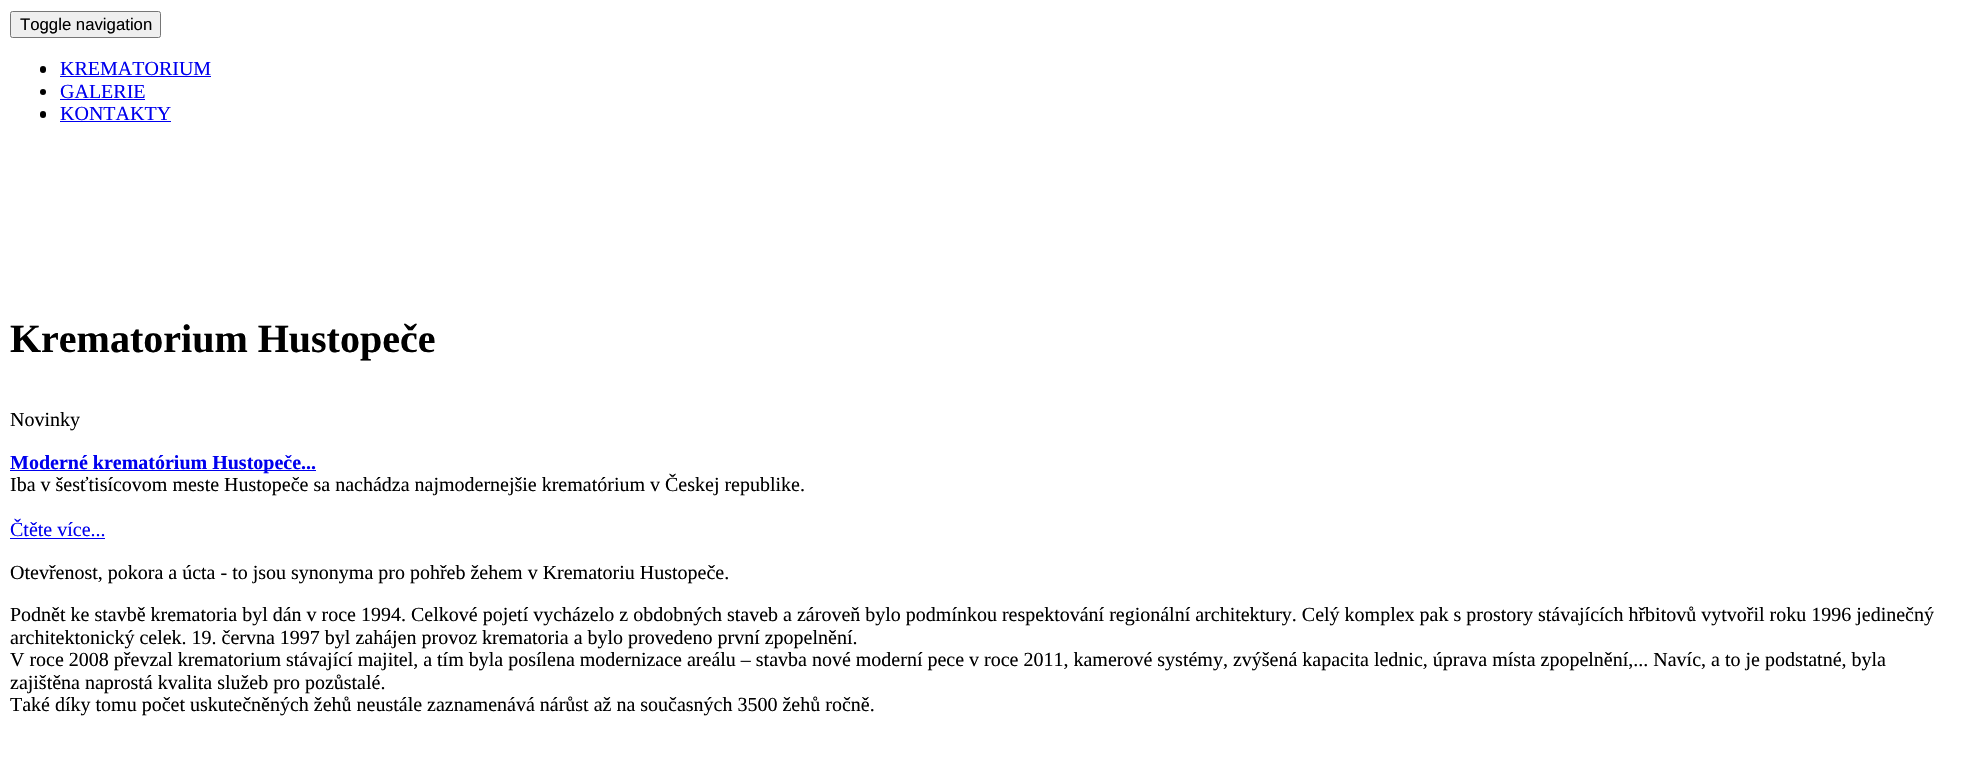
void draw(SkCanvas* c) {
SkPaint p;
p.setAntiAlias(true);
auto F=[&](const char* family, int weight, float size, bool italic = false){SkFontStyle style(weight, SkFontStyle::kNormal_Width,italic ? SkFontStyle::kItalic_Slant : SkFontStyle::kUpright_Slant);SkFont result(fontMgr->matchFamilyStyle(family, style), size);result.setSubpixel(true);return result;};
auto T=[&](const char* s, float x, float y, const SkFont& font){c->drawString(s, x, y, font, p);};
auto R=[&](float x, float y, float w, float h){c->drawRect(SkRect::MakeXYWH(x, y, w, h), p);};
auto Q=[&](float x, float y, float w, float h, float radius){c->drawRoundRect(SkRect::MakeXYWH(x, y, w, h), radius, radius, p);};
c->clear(0xffffffff);
p.setColor(0xffefefef);
c->drawRoundRect(SkRect::MakeXYWH(10.5,11.5,150,26),2,2,p);
p.setStroke(true);
p.setStrokeWidth(1);
p.setColor(0xff767676);
c->drawRoundRect(SkRect::MakeXYWH(10.5,11.5,150,26),2,2,p);
auto f1 = F("Liberation Sans",400,16.75);
p.setStroke(false);
p.setColor(0xff000000);
T("Toggle navigation",20,30,f1);
Q(40,66,6,7,3);
auto f2 = F("Liberation Serif",400,20);
p.setColor(0xff0000ee);
T("KREMATORIUM",60,75,f2);
R(60,76,151,1);
p.setColor(0xff000000);
c->drawCircle(43,92,3,p);
p.setColor(0xff0000ee);
T("GALERIE",60,98,f2);
R(60,99,85,1);
p.setColor(0xff000000);
Q(40,111,6,7,3);
p.setColor(0xff0000ee);
T("KONTAKTY",60,120,f2);
R(60,121,111,1);
auto f3 = F("Liberation Serif",700,40);
p.setColor(0xff000000);
T("Krematorium Hustopeče",10,352,f3);
T("Novinky",10,426,f2);
p.setColor(0xff0000ee);
R(10,470,306,1);
auto f4 = F("Liberation Serif",700,20);
T("Moderné krematórium Hustopeče...",10,469,f4);
p.setColor(0xff000000);
T("Iba v šesťtisícovom meste Hustopeče sa nachádza najmodernejšie krematórium v Českej republike.",10,491,f2);
p.setColor(0xff0000ee);
T("Čtěte více...",10,536,f2);
R(10,538,95,1);
p.setColor(0xff000000);
T("Otevřenost, pokora a úcta - to jsou synonyma pro pohřeb žehem v Krematoriu Hustopeče.",10,579,f2);
T("Podnět ke stavbě krematoria byl dán v roce 1994. Celkové pojetí vycházelo z obdobných staveb a zároveň bylo podmínkou respektování regionální architektury. Celý komplex pak s prostory stávajících hřbitovů vytvořil roku 1996 jedinečný",10,621,f2);
T("architektonický celek. 19. června 1997 byl zahájen provoz krematoria a bylo provedeno první zpopelnění.",10,644,f2);
T("V roce 2008 převzal krematorium stávající majitel, a tím byla posílena modernizace areálu – stavba nové moderní pece v roce 2011, kamerové systémy, zvýšená kapacita lednic, úprava místa zpopelnění,... Navíc, a to je podstatné, byla",10,666,f2);
T("zajištěna naprostá kvalita služeb pro pozůstalé.",10,689,f2);
T("Také díky tomu počet uskutečněných žehů neustále zaznamenává nárůst až na současných 3500 žehů ročně.",10,711,f2);
}
